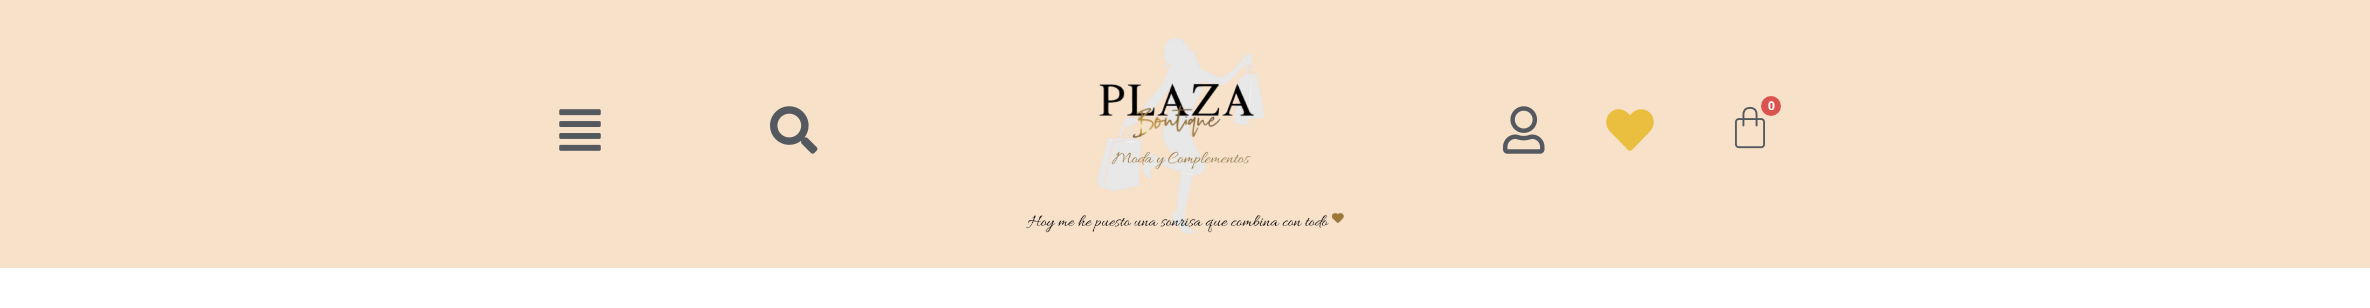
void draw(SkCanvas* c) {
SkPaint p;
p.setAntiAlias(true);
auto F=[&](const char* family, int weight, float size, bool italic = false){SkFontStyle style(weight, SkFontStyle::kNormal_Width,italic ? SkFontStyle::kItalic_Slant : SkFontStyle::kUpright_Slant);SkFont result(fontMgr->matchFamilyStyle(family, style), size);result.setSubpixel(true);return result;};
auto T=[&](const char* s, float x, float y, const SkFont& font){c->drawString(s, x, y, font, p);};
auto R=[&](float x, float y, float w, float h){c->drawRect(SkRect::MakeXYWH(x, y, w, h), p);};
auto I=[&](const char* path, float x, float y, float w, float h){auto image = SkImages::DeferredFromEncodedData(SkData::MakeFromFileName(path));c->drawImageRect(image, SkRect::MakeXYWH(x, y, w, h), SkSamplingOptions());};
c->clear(0xffffffff);
p.setColor(0xfff7e1c9);
R(0,0,2370,268);
I("1.png",559,109,42,42);
I("2.png",770,106,48,48);
I("3.png",1026,38,318,196);
I("4.png",1502,106,43,48);
I("5.png",1606,109,48,42);
I("6.png",1735,106,30,43);
p.setColor(0xffd9534f);
c->drawCircle(1771,106,10,p);
auto f1 = F("Roboto",600,12);
p.setColor(0xffffffff);
T("0",1768,110,f1);
}
